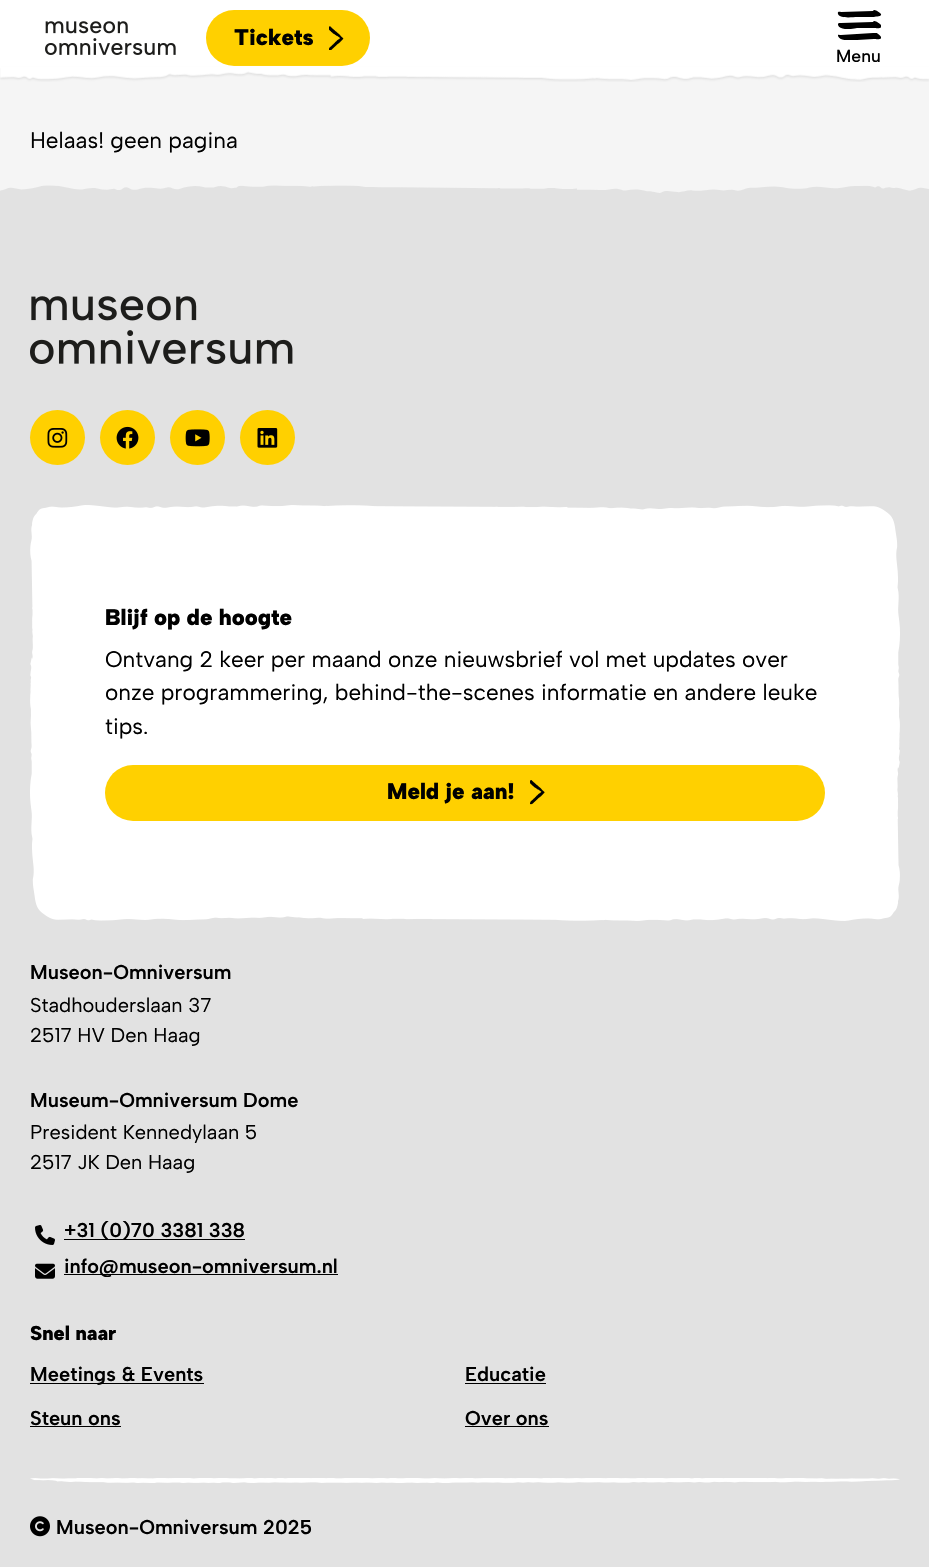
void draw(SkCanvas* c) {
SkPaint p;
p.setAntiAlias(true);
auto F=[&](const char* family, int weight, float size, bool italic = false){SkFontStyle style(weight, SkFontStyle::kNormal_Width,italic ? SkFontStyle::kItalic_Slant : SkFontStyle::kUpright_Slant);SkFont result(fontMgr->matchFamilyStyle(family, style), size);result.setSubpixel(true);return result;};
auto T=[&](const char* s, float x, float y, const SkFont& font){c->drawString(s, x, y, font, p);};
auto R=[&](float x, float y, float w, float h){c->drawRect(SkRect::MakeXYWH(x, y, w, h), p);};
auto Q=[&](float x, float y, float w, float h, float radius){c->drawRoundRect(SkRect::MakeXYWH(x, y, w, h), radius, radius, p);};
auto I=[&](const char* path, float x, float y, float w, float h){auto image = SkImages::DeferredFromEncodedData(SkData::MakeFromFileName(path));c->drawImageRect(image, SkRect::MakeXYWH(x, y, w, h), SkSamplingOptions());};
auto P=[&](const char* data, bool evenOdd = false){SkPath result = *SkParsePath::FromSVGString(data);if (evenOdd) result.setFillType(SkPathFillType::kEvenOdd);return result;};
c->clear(0xfff5f5f5);
p.setColor(0xffffffff);
R(0,0,929,68);
I("1.png",45,21,131,34);
p.setColor(0xffffd000);
Q(206,10,164,56,28);
auto f1 = F("Albert Sans",900,22.5);
p.setColor(0xff000000);
T("Tickets",234,45,f1);
I("2.png",329,26,15,24);
c->drawPath(P("M881 14c-1-1-7-6-8-3l-32 1c-1 0-4-1-3 2c2 5 15 3 19 3h17c2-1 8 0 7-3z"),p);
c->save();
c->clipRect(SkRect::MakeXYWH(838,21,43,8));
c->drawPath(P("M881 25c-1-1-7-6-8-3l-32 1c-1 0-4 0-3 2c2 6 15 4 19 3h17c2 0 8 1 7-2z"),p);
c->restore();
c->save();
c->clipRect(SkRect::MakeXYWH(838,33,43,7));
c->drawPath(P("M881 37c-1-2-7-7-8-4l-32 2c-1 0-4-1-3 1c2 6 15 4 19 4l17-1c2 0 8 1 7-2z"),p);
c->restore();
auto f2 = F("Albert Sans",500,17.5);
T("Menu",836,62,f2);
I("3.png",0,65,929,17);
auto f3 = F("Albert Sans",400,22.5);
T("Helaas! geen pagina",30,148,f3);
p.setColor(0xffe2e2e2);
R(0,196,929,1371);
I("4.png",0,185,929,11);
I("5.png",30,296,263,68);
p.setColor(0xffffd000);
c->drawCircle(57.5,437.5,27.5,p);
I("6.png",47,428,21,20);
c->drawCircle(127.5,437.5,27.5,p);
I("7.png",116,426,23,23);
c->drawCircle(197.5,437.5,27.5,p);
I("8.png",185,429,25,18);
c->drawCircle(267.5,437.5,27.5,p);
I("9.png",257,428,21,20);
I("10.png",30,505,870,416);
p.setColor(0xff000000);
T("Blijf op de hoogte",105,625,f1);
T("Ontvang 2 keer per maand onze nieuwsbrief vol met updates over",105,667,f3);
T("onze programmering, behind-the-scenes informatie en andere leuke",105,700,f3);
T("tips.",105,734,f3);
p.setColor(0xffffd000);
Q(105,765,720,56,28);
p.setColor(0xff000000);
T("Meld je aan!",387,799,f1);
I("11.png",530,780,15,25);
auto f4 = F("Albert Sans",600,20);
T("Museon-Omniversum",30,979,f4);
auto f5 = F("Albert Sans",400,20);
T("Stadhouderslaan 37",30,1012,f5);
T("2517 HV Den Haag",30,1042,f5);
T("Museum-Omniversum Dome",30,1107,f4);
T("President Kennedylaan 5",30,1139,f5);
T("2517 JK Den Haag",30,1169,f5);
I("12.png",35,1225,20,20);
T("+31 (0)70 3381 338",64,1237,f4);
R(64,1239,181,1);
I("13.png",35,1263,20,16);
R(64,1274,274,1);
T("info@museon-omniversum.nl",64,1273,f4);
auto f6 = F("Albert Sans",900,20);
T("Snel naar",30,1340,f6);
R(30,1383,174,1);
T("Meetings & Events",30,1381,f4);
T("Educatie",465,1381,f4);
R(465,1383,81,1);
T("Steun ons",30,1425,f4);
R(30,1426,91,1);
T("Over ons",465,1425,f4);
R(465,1426,84,1);
I("14.png",30,1478,870,5);
I("15.png",30,1516,20,21);
T("Museon-Omniversum 2025",56,1534,f4);
}
